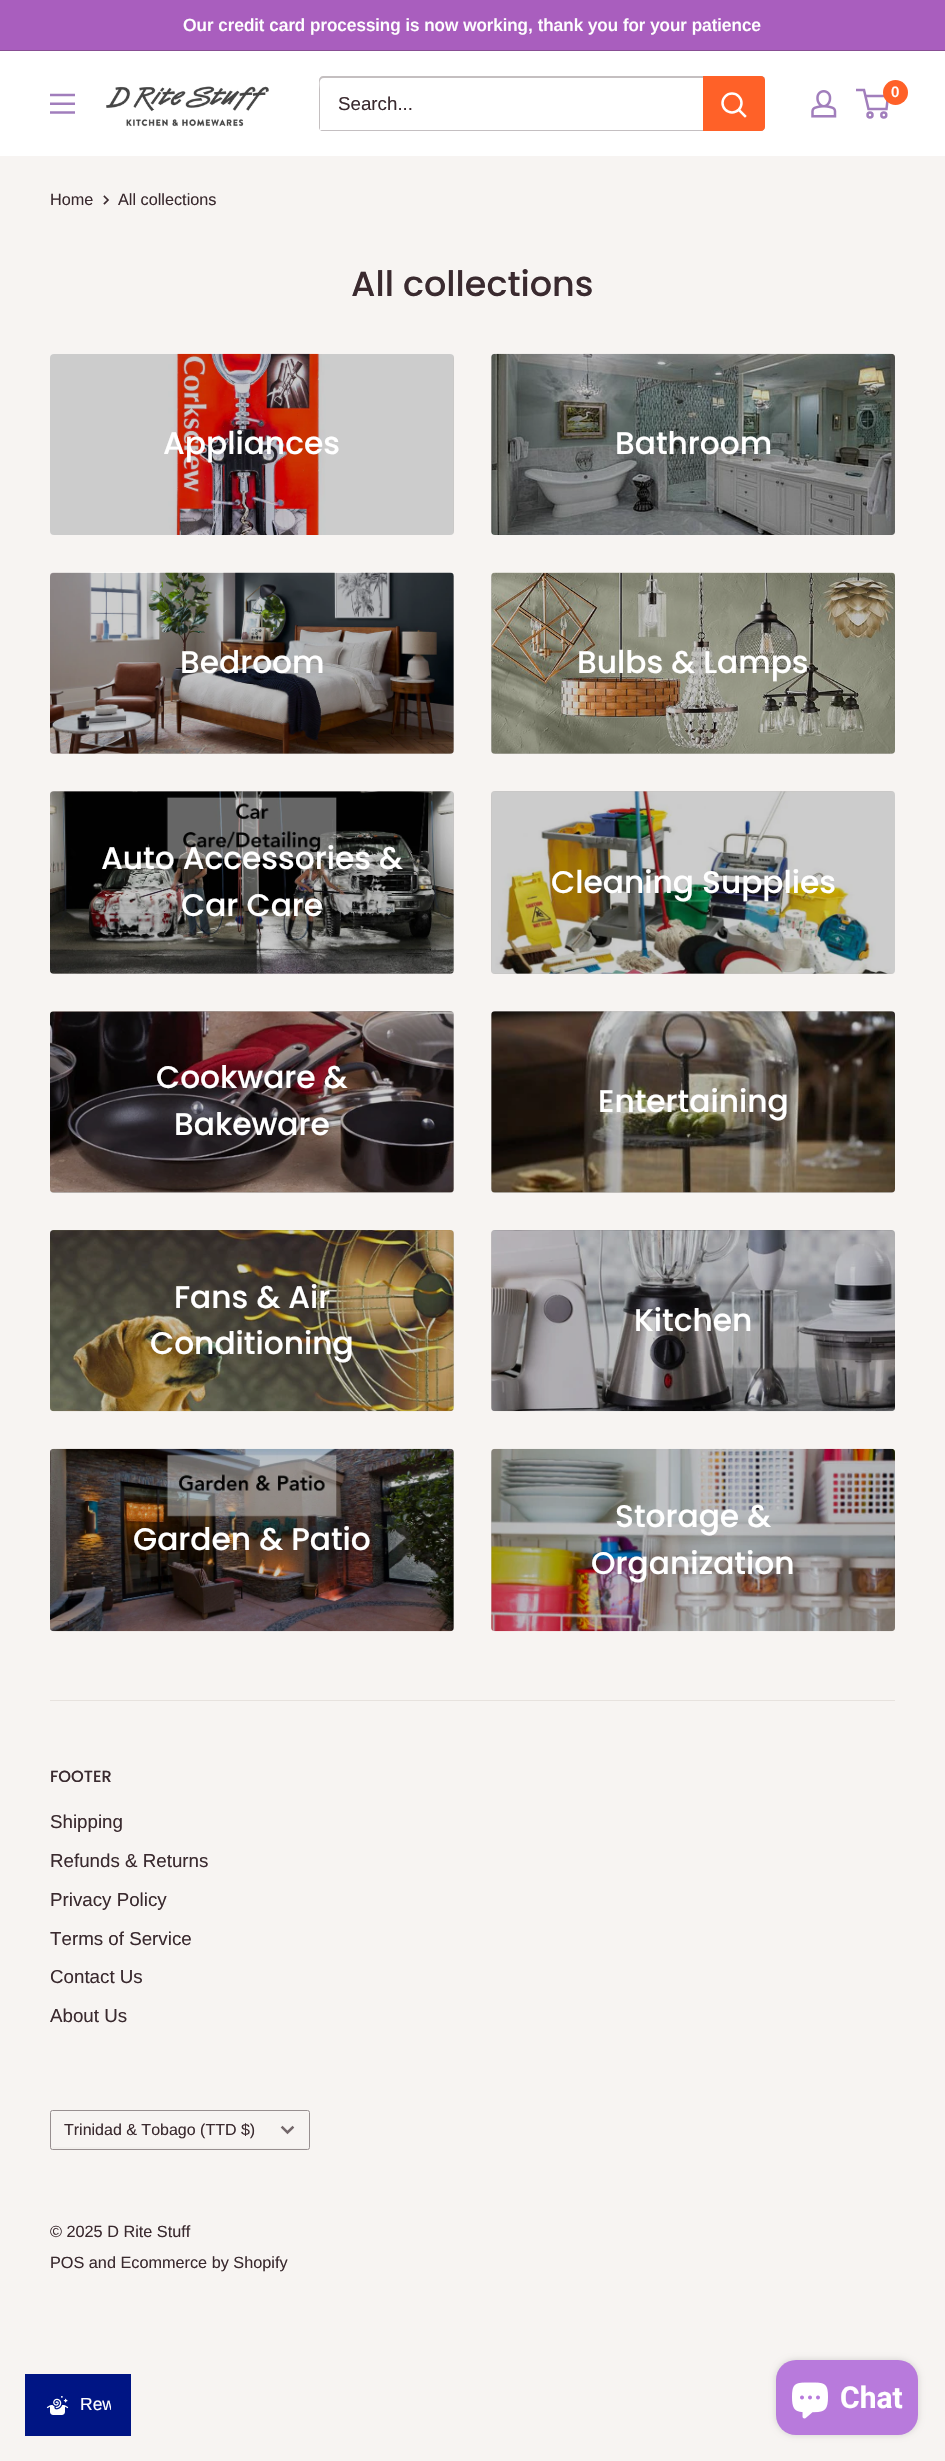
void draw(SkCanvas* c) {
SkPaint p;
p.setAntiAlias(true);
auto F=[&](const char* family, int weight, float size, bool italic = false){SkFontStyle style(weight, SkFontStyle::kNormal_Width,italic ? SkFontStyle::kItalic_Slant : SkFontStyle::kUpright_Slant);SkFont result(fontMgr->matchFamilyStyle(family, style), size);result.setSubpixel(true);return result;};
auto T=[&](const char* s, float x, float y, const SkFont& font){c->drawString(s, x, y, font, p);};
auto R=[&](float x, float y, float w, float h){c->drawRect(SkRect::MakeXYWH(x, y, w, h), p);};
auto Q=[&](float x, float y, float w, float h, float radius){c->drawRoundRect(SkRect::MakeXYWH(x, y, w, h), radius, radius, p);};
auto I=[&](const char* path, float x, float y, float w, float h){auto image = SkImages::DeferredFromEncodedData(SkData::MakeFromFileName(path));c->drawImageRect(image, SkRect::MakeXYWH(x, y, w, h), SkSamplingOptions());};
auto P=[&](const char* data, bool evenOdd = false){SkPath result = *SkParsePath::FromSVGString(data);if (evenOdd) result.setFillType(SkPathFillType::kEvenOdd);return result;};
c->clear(0xfff7f4f2);
p.setColor(0xffa95ebe);
R(0,0,945,50);
p.setColor(0xff884e93);
R(0,50,945,1);
auto f1 = F("Arimo",600,17.5);
p.setColor(0xffffffff);
T("Our credit card processing is now working, thank you for your patience",183,31,f1);
R(0,51,945,105);
I("1.png",50,93,25,21);
I("2.png",106,86,163,41);
p.setColor(0xffc4bfc1);
c->drawPath(P("M320 130c1 1 2 1 3 1h438c2 0 4-2 4-4v-47c0-1-1-3-2-3l1 2v47c0 2-2 4-4 4z"),p);
p.setColor(0x4d3a2a2f);
c->drawPath(P("M324 78h438h3c-1-1-2-2-4-2h-438c-2 0-4 2-4 4v47c0 1 0 2 1 3v-41c0-4-2-11 4-11z"),p);
auto f2 = F("Arimo",400,18.75);
p.setColor(0xff3a2a2f);
T("Search...",338,110,f2);
p.setColor(0xffff6128);
c->drawPath(P("M703 76h58c2 0 4 2 4 4v47c0 2-2 4-4 4h-58z"),p);
p.setStroke(true);
p.setStrokeWidth(2.5);
p.setStrokeCap(SkPaint::kSquare_Cap);
p.setColor(0xffffffff);
c->drawPath(P("M745 116l-6-6"),p);
p.setStrokeCap(SkPaint::kButt_Cap);
c->drawCircle(732,103,9.5,p);
I("3.png",811,90,26,28);
p.setColor(0xffa17ebc);
c->drawCircle(870,115,2.5,p);
c->drawCircle(883.8,115,2.5,p);
c->drawPath(P("M865.5 96h22.5l-1.5 13h-18l-4.5-19h-8"),p);
p.setStroke(false);
p.setColor(0xffff6128);
c->drawCircle(895.5,92.5,12.5,p);
auto f3 = F("Arimo",600,15);
p.setColor(0xffffffff);
T("0",891,97,f3);
auto f4 = F("Arimo",400,16.25);
p.setColor(0xff3a2a2f);
T("Home",50,205,f4);
p.setStroke(true);
p.setStrokeWidth(1.7);
p.setStrokeCap(SkPaint::kSquare_Cap);
c->drawPath(P("M104.5 196.5l3.5 3.5l-3.5 3.5"),p);
p.setStroke(false);
T("All collections",118,205,f4);
auto f5 = F("Poppins",500,35);
T("All collections",351,296,f5);
I("4.png",50,353,404,182);
p.setColor(0x33000000);
Q(50,354,404,181,4);
auto f6 = F("Poppins",500,31.25);
p.setColor(0xffffffff);
T("Appliances",163,454,f6);
I("5.png",491,353,404,182);
p.setColor(0x33000000);
Q(491,354,404,181,4);
p.setColor(0xffffffff);
T("Bathroom",615,454,f6);
I("6.png",50,572,404,182);
p.setColor(0x33000000);
Q(50,573,404,181,4);
p.setColor(0xffffffff);
T("Bedroom",180,673,f6);
I("7.png",491,572,404,182);
p.setColor(0x33000000);
Q(491,573,404,181,4);
p.setColor(0xffffffff);
T("Bulbs & Lamps",577,673,f6);
I("8.png",50,791,404,183);
p.setColor(0x33000000);
Q(50,791,404,183,4);
p.setColor(0xffffffff);
T("Auto Accessories &",101,869,f6);
T("Car Care",181,916,f6);
I("9.png",491,791,404,183);
p.setColor(0x33000000);
Q(491,791,404,183,4);
p.setColor(0xffffffff);
T("Cleaning Supplies",551,893,f6);
I("10.png",50,1011,404,182);
p.setColor(0x33000000);
Q(50,1011,404,182,4);
p.setColor(0xffffffff);
T("Cookware &",156,1088,f6);
T("Bakeware",174,1135,f6);
I("11.png",491,1011,404,182);
p.setColor(0x33000000);
Q(491,1011,404,182,4);
p.setColor(0xffffffff);
T("Entertaining",598,1112,f6);
I("12.png",50,1230,404,182);
p.setColor(0x33000000);
Q(50,1230,404,181,4);
p.setColor(0xffffffff);
T("Fans & Air",174,1308,f6);
T("Conditioning",150,1354,f6);
I("13.png",491,1230,404,182);
p.setColor(0x33000000);
Q(491,1230,404,181,4);
p.setColor(0xffffffff);
T("Kitchen",634,1331,f6);
I("14.png",50,1448,404,184);
p.setColor(0x33000000);
Q(50,1449,404,182,4);
p.setColor(0xffffffff);
T("Garden & Patio",133,1550,f6);
I("15.png",491,1448,404,184);
p.setColor(0x33000000);
Q(491,1449,404,182,4);
p.setColor(0xffffffff);
T("Storage &",615,1527,f6);
T("Organization",591,1574,f6);
p.setColor(0xffe7e2de);
R(50,1700,845,1);
auto f7 = F("Poppins",500,16.25);
p.setColor(0xff3a2a2f);
T("FOOTER",50,1782,f7);
T("Shipping",50,1828,f2);
T("Refunds & Returns",50,1867,f2);
T("Privacy Policy",50,1906,f2);
T("Terms of Service",50,1945,f2);
T("Contact Us",50,1983,f2);
T("About Us",50,2022,f2);
p.setColor(0xfff2efec);
c->drawPath(P("M51 2145c0 1-1 4 1 4h257v-2l-1 1l-256-1z"),p);
p.setStroke(true);
p.setStrokeWidth(1);
p.setStrokeCap(SkPaint::kButt_Cap);
p.setColor(0xff988f90);
c->drawRoundRect(SkRect::MakeXYWH(50.5,2110.5,259,39),2,2,p);
auto f8 = F("Arimo",400,16);
p.setStroke(false);
p.setColor(0xff3a2a2f);
T("Trinidad & Tobago (TTD $)",64,2135,f8);
p.setStroke(true);
p.setStrokeWidth(2.5);
p.setStrokeCap(SkPaint::kSquare_Cap);
p.setColor(0xff73676a);
c->drawPath(P("M292.5 2127.5l-5 5l-5-5"),p);
p.setStroke(false);
p.setColor(0xff3a2a2f);
T("© 2025 D Rite Stuff",50,2237,f4);
T("POS and Ecommerce by Shopify",50,2268,f4);
p.setColor(0xff001584);
R(25,2374,106,62);
I("16.png",46,2396,23,19);
c->save();
c->clipRect(SkRect::MakeXYWH(80,2393,31,25));
auto f9 = F("Arimo",400,17.5);
p.setColor(0xffffffff);
T("Rew",80,2410,f9);
c->restore();
p.setColor(0x26000000);
p.setMaskFilter(SkMaskFilter::MakeBlur(kNormal_SkBlurStyle, 3));
c->drawRoundRect(SkRect::MakeXYWH(776,2360,142,75),20,20,p);
p.setMaskFilter(nullptr);
p.setColor(0xffb87adc);
Q(776,2360,142,75,20);
I("17.png",792,2382,36,37);
auto f10 = F("Roboto",700,30);
p.setColor(0xffffffff);
T("Chat",840,2408,f10);
}
